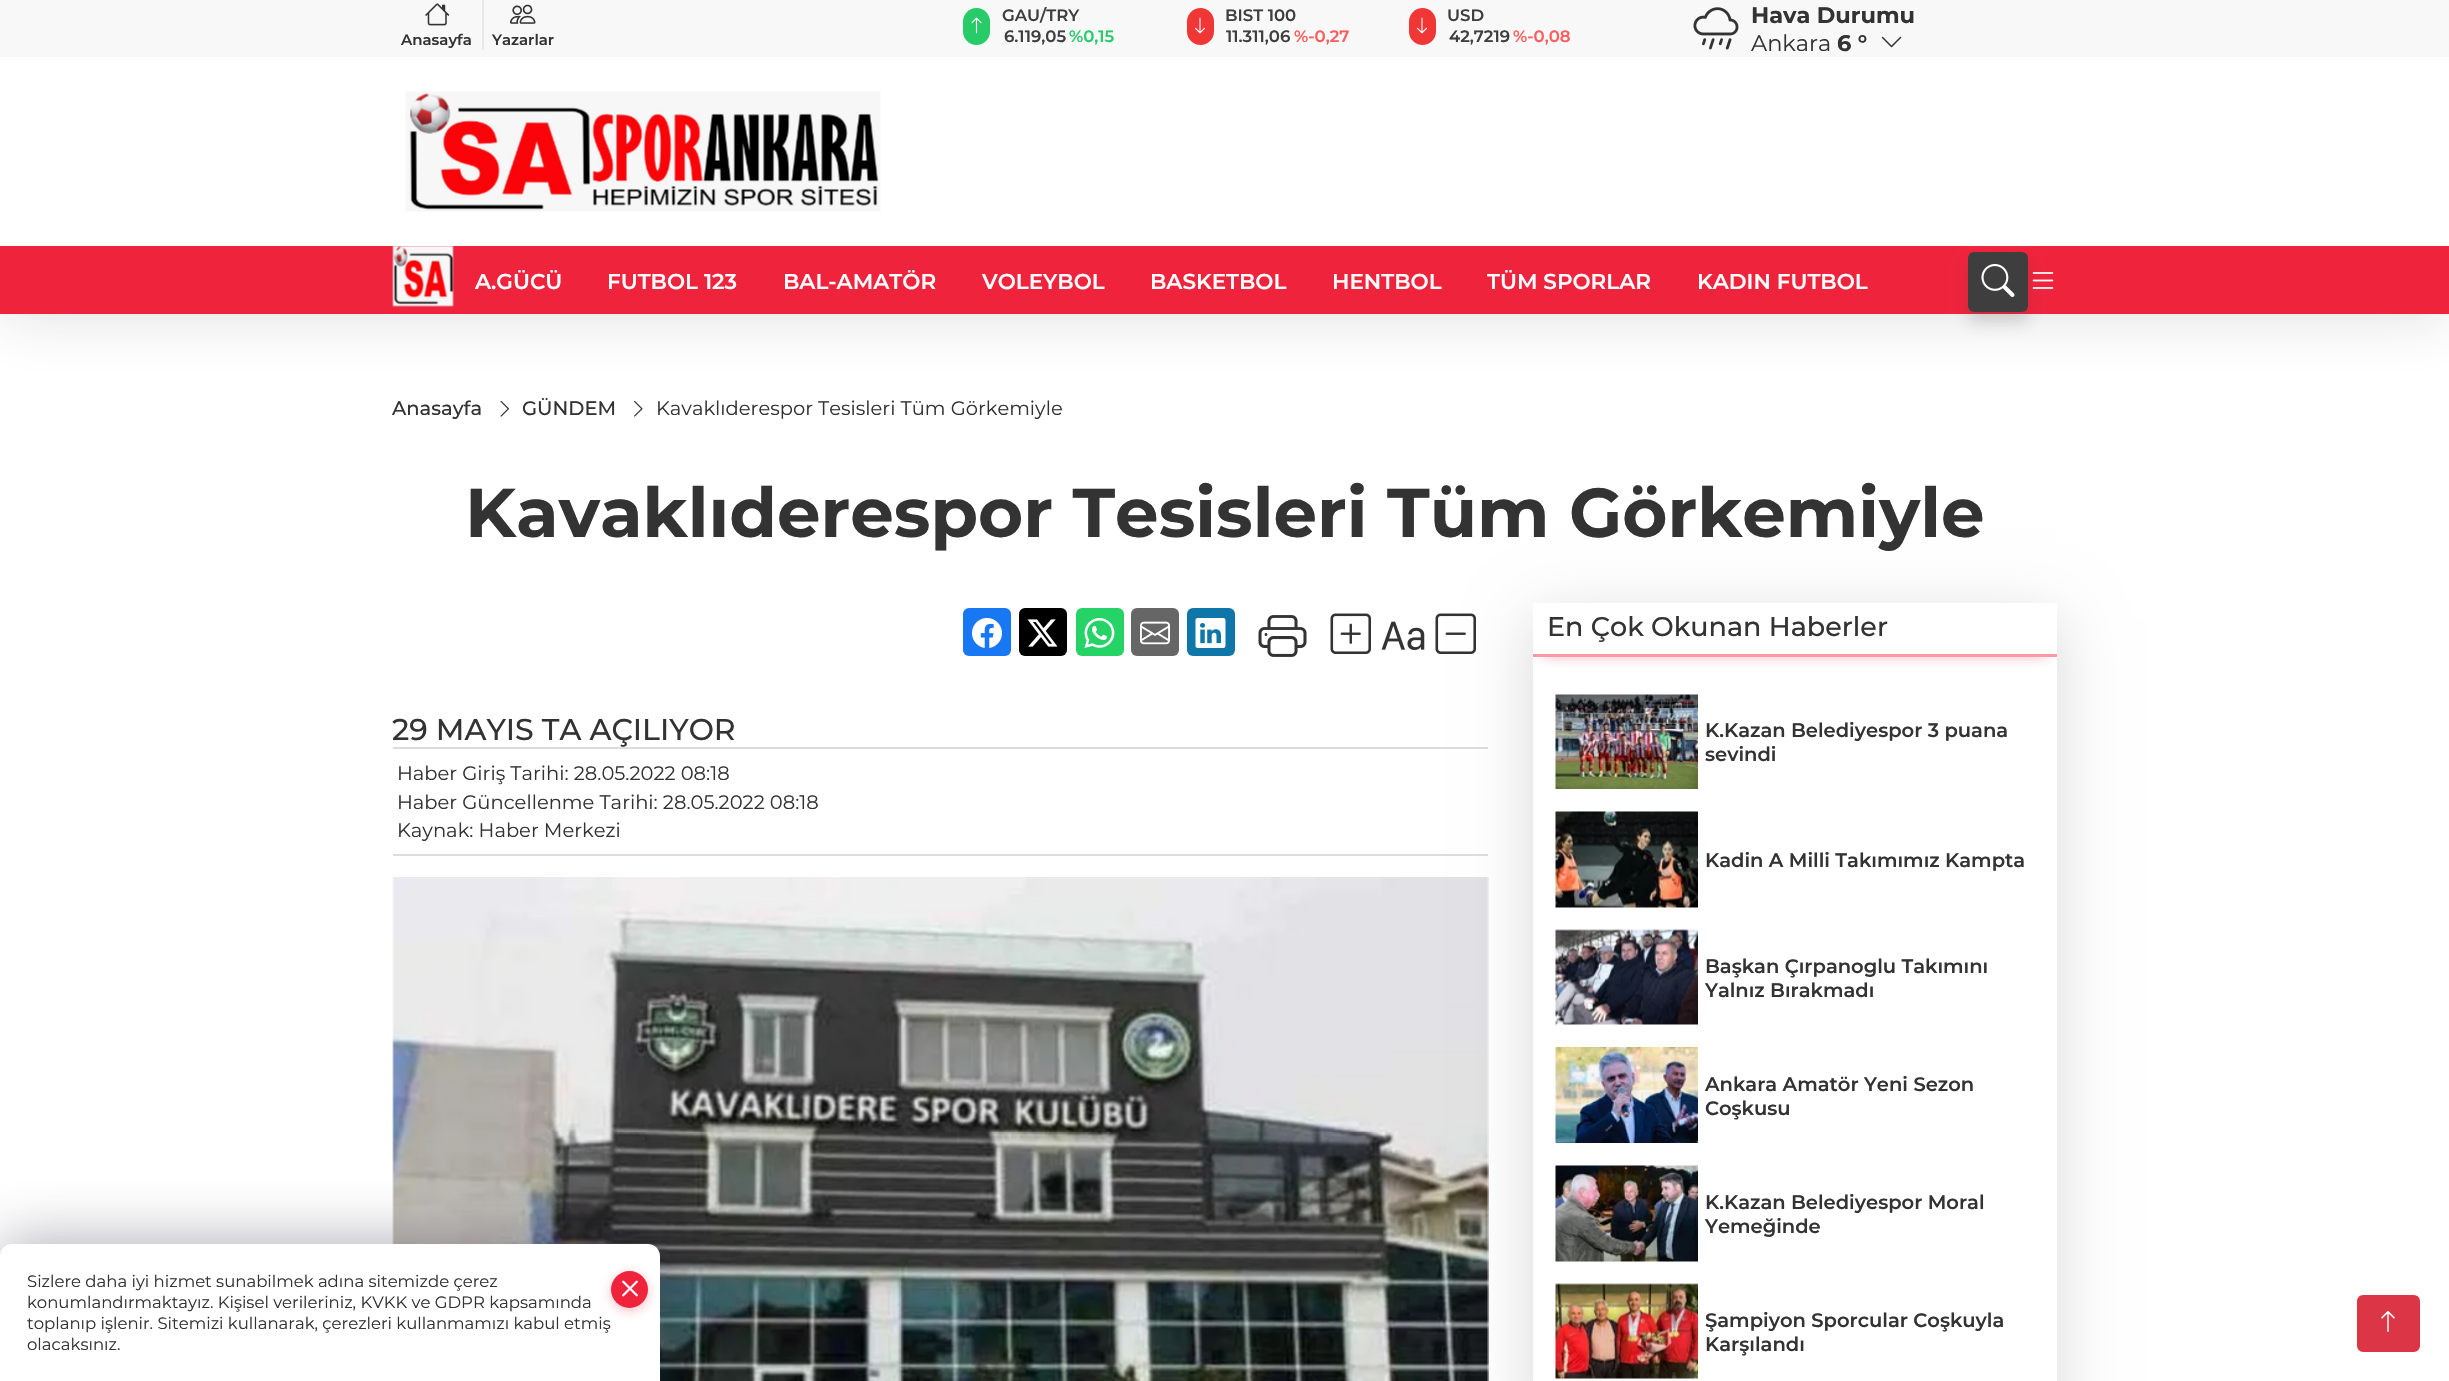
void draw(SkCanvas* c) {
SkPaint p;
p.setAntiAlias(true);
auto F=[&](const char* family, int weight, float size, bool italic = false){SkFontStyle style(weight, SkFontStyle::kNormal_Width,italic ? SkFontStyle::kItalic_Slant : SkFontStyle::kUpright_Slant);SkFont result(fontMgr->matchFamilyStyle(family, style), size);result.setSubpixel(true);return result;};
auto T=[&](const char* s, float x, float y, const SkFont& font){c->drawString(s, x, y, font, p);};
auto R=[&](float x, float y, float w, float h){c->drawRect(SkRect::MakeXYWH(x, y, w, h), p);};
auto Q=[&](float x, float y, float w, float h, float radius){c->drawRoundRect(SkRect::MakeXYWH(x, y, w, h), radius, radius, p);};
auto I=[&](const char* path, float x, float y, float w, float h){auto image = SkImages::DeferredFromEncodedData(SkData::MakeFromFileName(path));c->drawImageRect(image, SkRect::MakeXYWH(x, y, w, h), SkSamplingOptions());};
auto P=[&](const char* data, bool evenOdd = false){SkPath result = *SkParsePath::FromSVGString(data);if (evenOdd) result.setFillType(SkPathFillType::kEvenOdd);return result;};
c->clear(0xffffffff);
I("23.png",392,877,1097,504);
p.setColor(0x5c2b2d42);
p.setMaskFilter(SkMaskFilter::MakeBlur(kNormal_SkBlurStyle, 28.5));
c->drawRoundRect(SkRect::MakeXYWH(0,1239,660,138),12,12,p);
p.setMaskFilter(nullptr);
p.setColor(0xffffffff);
c->drawPath(P("M12 1244h636c6.5 0 12 5.5 12 12v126h-660v-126c0-6.5 5.5-12 12-12z"),p);
auto f1 = F("Montserrat",400,16.5);
p.setColor(0xff333333);
T("Sizlere daha iyi hizmet sunabilmek adına sitemizde çerez",27,1287,f1);
p.setColor(0x61ff566a);
p.setMaskFilter(SkMaskFilter::MakeBlur(kNormal_SkBlurStyle, 6));
c->drawRoundRect(SkRect::MakeXYWH(611,1274,37,37),18.5,18.5,p);
p.setMaskFilter(nullptr);
p.setColor(0xffef233c);
c->drawCircle(629.5,1289.5,18.5,p);
I("1.png",622,1280,16,17);
p.setColor(0xff333333);
T("konumlandırmaktayız. Kişisel verileriniz, KVKK ve GDPR kapsamında",27,1308,f1);
T("toplanıp işlenir. Sitemizi kullanarak, çerezleri kullanmamızı kabul etmiş",27,1329,f1);
T("olacaksınız.",27,1350,f1);
I("12.png",500,400,9,17);
I("13.png",634,400,9,17);
p.setColor(0x242b2d42);
p.setMaskFilter(SkMaskFilter::MakeBlur(kNormal_SkBlurStyle, 28.5));
c->drawRect(SkRect::MakeXYWH(0,5,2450,313),p);
p.setMaskFilter(nullptr);
p.setColor(0xffffffff);
R(0,57,2449,189);
p.setColor(0xfff8f8f8);
R(0,0,2449,57);
p.setColor(0xffe8e8e8);
R(482,0,2,50);
I("2.png",425,3,25,23);
auto f2 = F("Montserrat",600,15);
p.setColor(0xff333333);
T("Anasayfa",401,45,f2);
I("3.png",510,4,26,20);
T("Yazarlar",492,45,f2);
p.setColor(0xff27cc69);
Q(963,8,27,37,13.5);
I("4.png",971,17,11,17);
auto f3 = F("Montserrat",600,16.5);
p.setColor(0xff3e3e3e);
T("GAU/TRY",1002,21,f3);
T("6.119,05",1004,42,f3);
p.setColor(0xff26cc69);
T("%0,15",1069,42,f3);
p.setColor(0xfff13636);
Q(1187,8,27,37,13.5);
I("5.png",1195,17,10,17);
p.setColor(0xff3e3e3e);
T("BIST 100",1225,21,f3);
T("11.311,06",1226,42,f3);
p.setColor(0xffff5c5c);
T("%-0,27",1294,42,f3);
p.setColor(0xfff13636);
Q(1409,8,27,37,13.5);
I("5.png",1417,17,10,17);
p.setColor(0xff3e3e3e);
T("USD",1447,21,f3);
T("42,7219",1449,42,f3);
p.setColor(0xffff5c5c);
T("%-0,08",1513,42,f3);
I("6.png",1693,7,46,43);
auto f4 = F("Montserrat",700,22.5);
p.setColor(0xff333333);
T("Hava Durumu",1751,23,f4);
auto f5 = F("Montserrat",400,22.5);
T("Ankara",1751,51,f5);
T("6 °",1837,51,f4);
I("7.png",1881,36,21,12);
I("8.png",405,91,476,121);
p.setColor(0xffef233c);
R(0,246,2449,68);
I("9.png",392,245,62,62);
auto f6 = F("Montserrat",600,21.5);
p.setColor(0xffffffff);
T("A.GÜCÜ",475,289,f6);
T("FUTBOL 123",607,289,f6);
T("BAL-AMATÖR",783,289,f6);
T("VOLEYBOL",982,289,f6);
T("BASKETBOL",1150,289,f6);
T("HENTBOL",1332,289,f6);
T("TÜM SPORLAR",1487,289,f6);
T("KADIN FUTBOL",1697,289,f6);
p.setColor(0x2e3e3e3e);
p.setMaskFilter(SkMaskFilter::MakeBlur(kNormal_SkBlurStyle, 8));
c->drawRoundRect(SkRect::MakeXYWH(1968,263,60,60),6,6,p);
p.setMaskFilter(nullptr);
p.setColor(0xff3e3e3e);
Q(1968,252,60,60,6);
I("10.png",1981,264,34,33);
I("11.png",2032,272,22,17);
auto f7 = F("Montserrat",500,19.5);
p.setColor(0xff333333);
T("Anasayfa",392,415,f7);
T("GÜNDEM",522,415,f7);
auto f8 = F("Montserrat",400,19.5);
T("Kavaklıderespor Tesisleri Tüm Görkemiyle",656,415,f8);
auto f9 = F("Montserrat",700,69);
T("Kavaklıderespor Tesisleri Tüm Görkemiyle",465,537,f9);
p.setColor(0xff1877f2);
Q(963,608,48,48,6);
I("14.png",972,618,30,30);
p.setColor(0xff000000);
Q(1019,608,48,48,6);
I("15.png",1027,619,31,28);
p.setColor(0xff25d366);
Q(1076,608,48,48,6);
I("16.png",1084,618,31,30);
p.setColor(0xff666666);
Q(1131,608,48,48,6);
I("17.png",1140,621,30,24);
p.setColor(0xff0e76a8);
Q(1187,608,48,48,6);
I("18.png",1195,618,31,30);
I("19.png",1258,615,49,42);
I("20.png",1330,613,41,41);
I("21.png",1381,621,44,29);
I("22.png",1435,613,41,41);
auto f10 = F("Montserrat",500,30);
p.setColor(0xff333333);
T("29 MAYIS TA AÇILIYOR",392,740,f10);
p.setColor(0xffdddddd);
R(393,747,1095,2);
R(393,854,1095,2);
p.setColor(0xff333333);
T("Haber Giriş Tarihi: 28.05.2022 08:18",397,780,f8);
T("Haber Güncellenme Tarihi: 28.05.2022 08:18",397,809,f8);
T("Kaynak: Haber Merkezi",397,837,f8);
p.setColor(0x26000000);
p.setMaskFilter(SkMaskFilter::MakeBlur(kNormal_SkBlurStyle, 30));
c->drawRect(SkRect::MakeXYWH(1533,618,524,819),p);
p.setMaskFilter(nullptr);
p.setColor(0xffffffff);
R(1533,603,524,778);
c->save();
c->clipRect(SkRect::MakeXYWH(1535,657,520,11));
p.setColor(0x61ff566a);
p.setMaskFilter(SkMaskFilter::MakeBlur(kNormal_SkBlurStyle, 7));
c->drawRect(SkRect::MakeXYWH(1544,624,502,33),p);
p.setMaskFilter(nullptr);
c->restore();
p.setColor(0xffff97a4);
R(1533,654,524,3);
auto f11 = F("Montserrat",500,27);
p.setColor(0xff333333);
T("En Çok Okunan Haberler",1547,636,f11);
I("24.png",1555,694,143,95);
auto f12 = F("Montserrat",600,19.5);
T("K.Kazan Belediyespor 3 puana",1705,737,f12);
T("sevindi",1705,761,f12);
I("25.png",1555,811,143,97);
T("Kadin A Milli Takımımız Kampta",1705,867,f12);
I("26.png",1555,929,143,96);
T("Başkan Çırpanoglu Takımını",1705,973,f12);
T("Yalnız Bırakmadı",1705,997,f12);
I("27.png",1555,1047,143,96);
T("Ankara Amatör Yeni Sezon",1705,1091,f12);
T("Coşkusu",1705,1115,f12);
I("28.png",1555,1165,143,97);
T("K.Kazan Belediyespor Moral",1705,1209,f12);
T("Yemeğinde",1705,1233,f12);
I("29.png",1555,1283,143,96);
T("Şampiyon Sporcular Coşkuyla",1705,1327,f12);
T("Karşılandı",1705,1351,f12);
p.setColor(0xffdc3545);
c->drawRoundRect(SkRect::MakeXYWH(2358,1296,61,55),5,5,p);
p.setStroke(true);
p.setStrokeWidth(2);
c->drawRoundRect(SkRect::MakeXYWH(2358,1296,61,55),5,5,p);
I("30.png",2381,1311,14,21);
}
